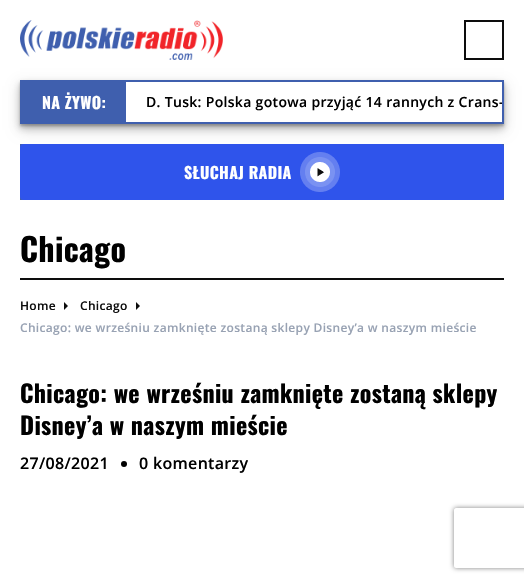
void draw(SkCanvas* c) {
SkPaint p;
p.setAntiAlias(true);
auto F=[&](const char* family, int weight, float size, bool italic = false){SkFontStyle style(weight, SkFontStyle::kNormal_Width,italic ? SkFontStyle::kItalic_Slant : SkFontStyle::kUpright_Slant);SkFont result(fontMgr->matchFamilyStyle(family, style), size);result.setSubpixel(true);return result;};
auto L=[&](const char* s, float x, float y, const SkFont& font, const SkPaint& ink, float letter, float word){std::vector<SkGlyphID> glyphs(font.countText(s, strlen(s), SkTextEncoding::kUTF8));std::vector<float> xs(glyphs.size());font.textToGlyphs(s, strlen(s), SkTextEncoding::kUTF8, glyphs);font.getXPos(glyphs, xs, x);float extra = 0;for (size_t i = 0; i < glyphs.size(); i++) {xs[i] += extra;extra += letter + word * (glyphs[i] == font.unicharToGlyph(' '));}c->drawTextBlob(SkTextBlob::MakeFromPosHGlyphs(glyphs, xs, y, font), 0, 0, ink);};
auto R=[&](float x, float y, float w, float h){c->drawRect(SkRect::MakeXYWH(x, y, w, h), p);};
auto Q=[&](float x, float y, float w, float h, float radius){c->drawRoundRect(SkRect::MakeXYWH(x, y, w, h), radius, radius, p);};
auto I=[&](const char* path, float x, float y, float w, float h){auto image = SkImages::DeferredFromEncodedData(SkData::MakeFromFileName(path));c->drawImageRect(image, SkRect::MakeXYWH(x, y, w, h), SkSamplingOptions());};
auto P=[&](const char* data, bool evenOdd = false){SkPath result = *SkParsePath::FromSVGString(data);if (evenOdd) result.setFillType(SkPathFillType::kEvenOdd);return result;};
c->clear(0xffffffff);
I("1.png",20,20,203,40);
p.setStroke(true);
p.setStrokeWidth(2);
p.setColor(0xff0d0d0d);
c->drawRect(SkRect::MakeXYWH(465,21,38,38),p);
c->save();
c->clipPath(P("M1 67h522v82h-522zm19 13h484v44h-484z",true),true);
p.setStroke(false);
p.setColor(0x26000000);
p.setMaskFilter(SkMaskFilter::MakeBlur(kNormal_SkBlurStyle, 6));
c->drawRect(SkRect::MakeXYWH(20,86,484,44),p);
p.setMaskFilter(nullptr);
c->restore();
c->save();
c->clipPath(P("M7 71h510v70h-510zm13 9h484v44h-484z",true),true);
p.setMaskFilter(SkMaskFilter::MakeBlur(kNormal_SkBlurStyle, 4));
c->drawRect(SkRect::MakeXYWH(20,84,484,44),p);
p.setMaskFilter(nullptr);
c->restore();
c->save();
c->clipPath(P("M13 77h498v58h-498zm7 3h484v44h-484z",true),true);
p.setColor(0x1a000000);
p.setMaskFilter(SkMaskFilter::MakeBlur(kNormal_SkBlurStyle, 2));
c->drawRect(SkRect::MakeXYWH(20,84,484,44),p);
p.setMaskFilter(nullptr);
c->restore();
c->save();
c->clipPath(P("M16 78h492v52h-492zm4 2h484v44h-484z",true),true);
p.setColor(0x33000000);
p.setMaskFilter(SkMaskFilter::MakeBlur(kNormal_SkBlurStyle, 1));
c->drawRect(SkRect::MakeXYWH(20,82,484,44),p);
p.setMaskFilter(nullptr);
c->restore();
p.setStroke(true);
p.setColor(0xff3f5fae);
c->drawRect(SkRect::MakeXYWH(21,81,482,42),p);
p.setStroke(false);
R(22,82,104,40);
auto f1 = F("Oswald",700,16);
p.setColor(0xffffffff);
L("NA ŻYWO:",42,109,f1,p,.32,0);
c->save();
c->clipRect(SkRect::MakeXYWH(126,82,376,40));
auto f2 = F("Open Sans",600,14);
p.setColor(0xff000000);
L("D. Tusk: Polska gotowa przyjąć 14 rannych z Crans-",146,107,f2,p,.32,0);
c->restore();
p.setColor(0xff3f5fae);
R(20,144,484,56);
p.setColor(0xff2f54eb);
Q(20,144,484,56,4);
p.setColor(0xffffffff);
L("SŁUCHAJ RADIA",184,179,f1,p,.32,0);
I("2.png",300,152,40,40);
p.setColor(0xff0d0d0d);
R(20,278,484,2);
auto f3 = F("Oswald",700,32);
p.setColor(0xff000000);
L("Chicago",20,262,f3,p,.32,0);
auto f4 = F("Open Sans",600,12);
p.setColor(0xff0d0d0d);
L("Home",20,310,f4,p,.32,0);
I("3.png",64,302,4,8);
L("Chicago",80,310,f4,p,.32,0);
I("3.png",136,302,4,8);
p.setColor(0xff98a2b3);
L("Chicago: we wrześniu zamknięte zostaną sklepy Disney’a w naszym mieście",20,332,f4,p,.32,0);
auto f5 = F("Oswald",700,24);
p.setColor(0xff000000);
L("Chicago: we wrześniu zamknięte zostaną sklepy",20,403,f5,p,.32,0);
L("Disney’a w naszym mieście",20,435,f5,p,.32,0);
auto f6 = F("Open Sans",600,16);
L("27/08/2021",20,469,f6,p,.32,0);
c->drawCircle(124,464,3,p);
L("0 komentarzy",139,469,f6,p,.32,0);
c->save();
c->clipPath(P("M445 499h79v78h-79zm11 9h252c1 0 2 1 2 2v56c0 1-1 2-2 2h-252c-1 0-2-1-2-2v-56c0-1 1-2 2-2z",true),true);
p.setColor(0xff808080);
p.setMaskFilter(SkMaskFilter::MakeBlur(kNormal_SkBlurStyle, 2.5));
c->drawRoundRect(SkRect::MakeXYWH(454,508,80,60),2,2,p);
p.setMaskFilter(nullptr);
c->restore();
}
